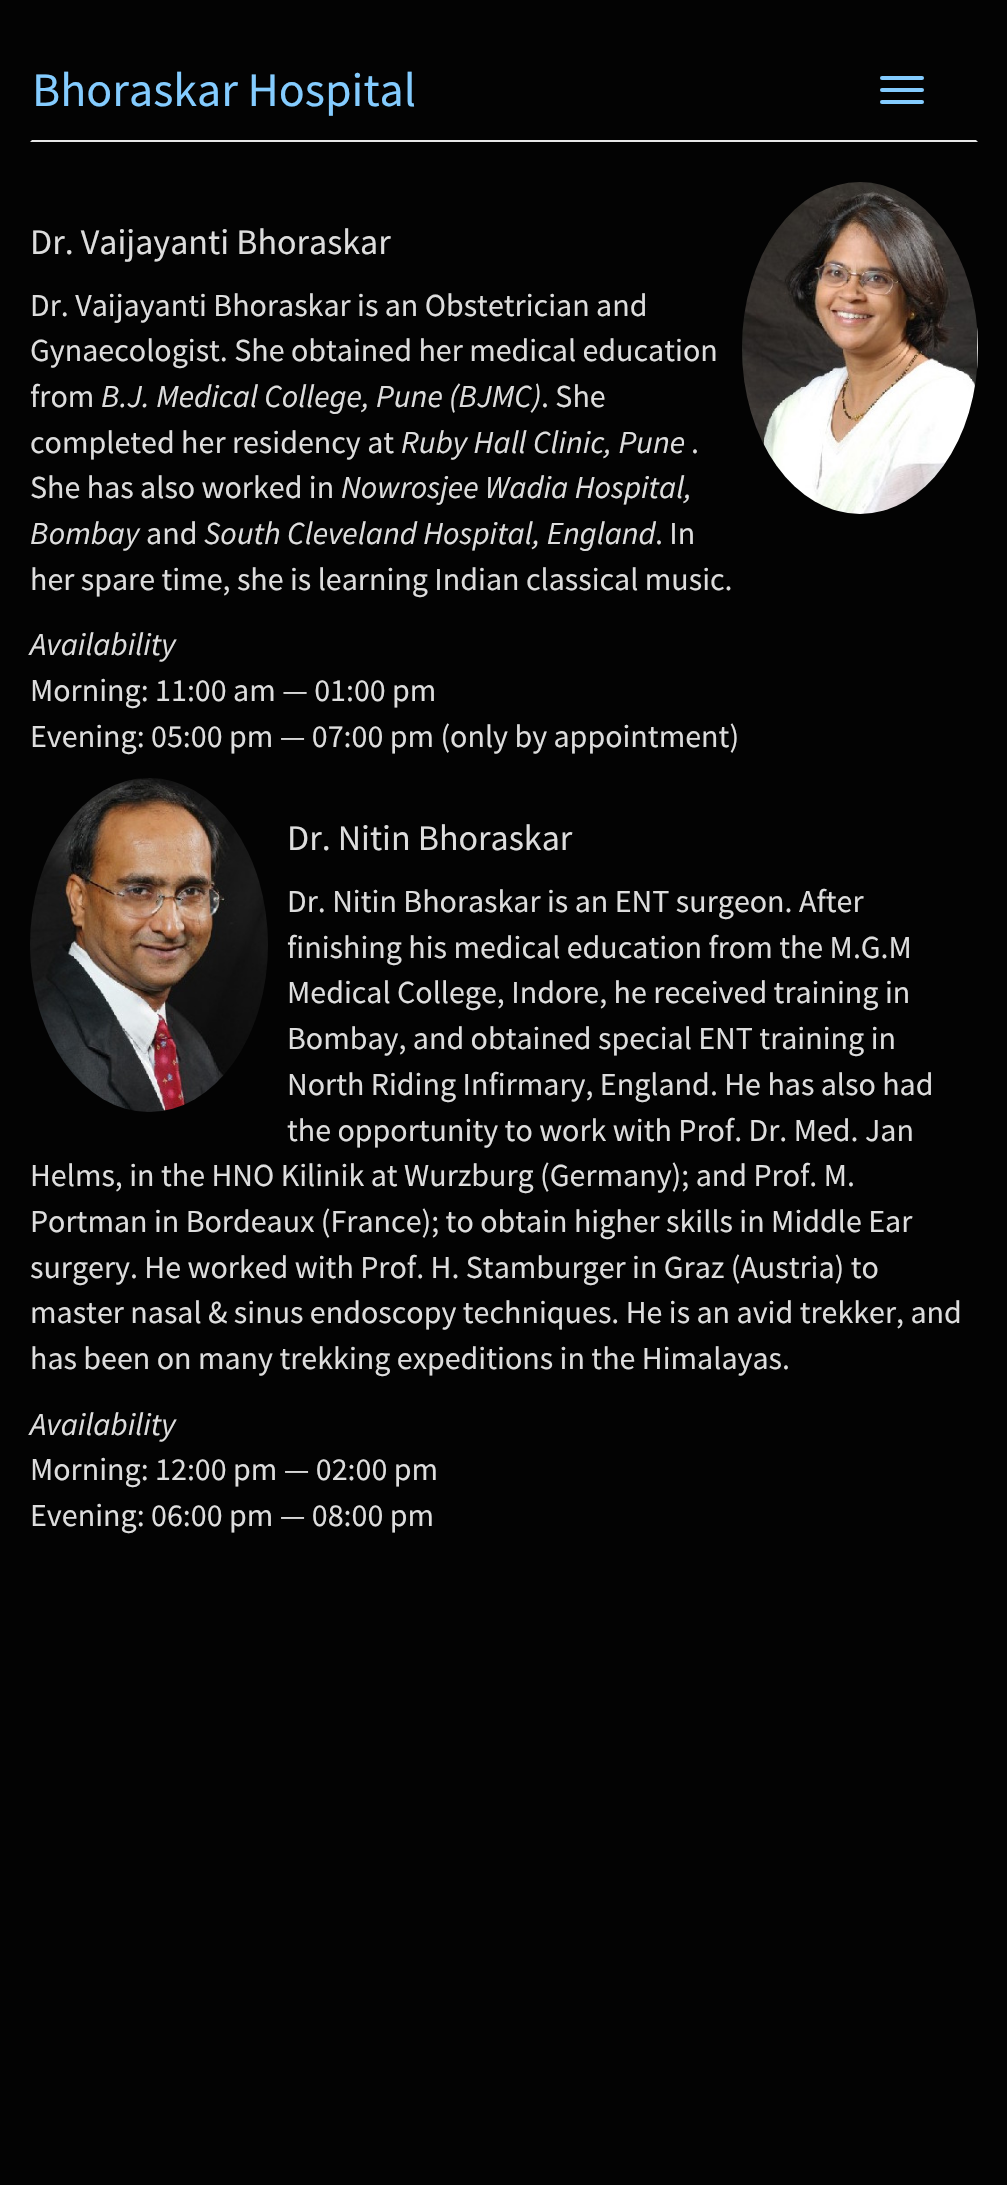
void draw(SkCanvas* c) {
SkPaint p;
p.setAntiAlias(true);
auto F=[&](const char* family, int weight, float size, bool italic = false){SkFontStyle style(weight, SkFontStyle::kNormal_Width,italic ? SkFontStyle::kItalic_Slant : SkFontStyle::kUpright_Slant);SkFont result(fontMgr->matchFamilyStyle(family, style), size);result.setSubpixel(true);return result;};
auto T=[&](const char* s, float x, float y, const SkFont& font){c->drawString(s, x, y, font, p);};
auto Q=[&](float x, float y, float w, float h, float radius){c->drawRoundRect(SkRect::MakeXYWH(x, y, w, h), radius, radius, p);};
auto I=[&](const char* path, float x, float y, float w, float h){auto image = SkImages::DeferredFromEncodedData(SkData::MakeFromFileName(path));c->drawImageRect(image, SkRect::MakeXYWH(x, y, w, h), SkSamplingOptions());};
auto P=[&](const char* data, bool evenOdd = false){SkPath result = *SkParsePath::FromSVGString(data);if (evenOdd) result.setFillType(SkPathFillType::kEvenOdd);return result;};
c->clear(0xff030303);
p.setColor(0xffe7e7e7);
c->drawPath(P("M978 142h-948l2-2h944z"),p);
auto f1 = F("Source Sans Pro",400,48);
p.setColor(0xff84ccff);
T("Bhoraskar Hospital",32,106,f1);
Q(880,76,44,4,2);
Q(880,88,44,4,2);
Q(880,100,44,4,2);
auto f2 = F("Source Sans Pro",400,36);
p.setColor(0xffdddddd);
T("Dr. Vaijayanti Bhoraskar",30,254,f2);
I("1.png",742,182,236,332);
auto f3 = F("Source Sans Pro",400,32);
T("Dr. Vaijayanti Bhoraskar is an Obstetrician and",30,316,f3);
T("Gynaecologist. She obtained her medical education",30,361,f3);
T("from",30,407,f3);
auto f4 = F("Source Sans Pro",400,32,true);
T("B.J. Medical College, Pune (BJMC)",101,407,f4);
T(". She",541,407,f3);
T("completed her residency at",30,453,f3);
T("Ruby Hall Clinic, Pune",401,453,f4);
T(".",691,453,f3);
T("She has also worked in",30,498,f3);
T("Nowrosjee Wadia Hospital,",341,498,f4);
T("Bombay",30,544,f4);
T("and",146,544,f3);
T("South Cleveland Hospital, England",204,544,f4);
T(". In",655,544,f3);
T("her spare time, she is learning Indian classical music.",30,590,f3);
T("Availability",30,655,f4);
T("Morning: 11:00 am — 01:00 pm",30,701,f3);
T("Evening: 05:00 pm — 07:00 pm (only by appointment)",30,747,f3);
I("2.png",30,778,238,334);
T("Dr. Nitin Bhoraskar",287,850,f2);
T("Dr. Nitin Bhoraskar is an ENT surgeon. After",287,912,f3);
T("finishing his medical education from the M.G.M",287,958,f3);
T("Medical College, Indore, he received training in",287,1003,f3);
T("Bombay, and obtained special ENT training in",287,1049,f3);
T("North Riding Infirmary, England. He has also had",287,1095,f3);
T("the opportunity to work with Prof. Dr. Med. Jan",287,1141,f3);
T("Helms, in the HNO Kilinik at Wurzburg (Germany); and Prof. M.",30,1186,f3);
T("Portman in Bordeaux (France); to obtain higher skills in Middle Ear",30,1232,f3);
T("surgery. He worked with Prof. H. Stamburger in Graz (Austria) to",30,1278,f3);
T("master nasal & sinus endoscopy techniques. He is an avid trekker, and",30,1323,f3);
T("has been on many trekking expeditions in the Himalayas.",30,1369,f3);
T("Availability",30,1435,f4);
T("Morning: 12:00 pm — 02:00 pm",30,1480,f3);
T("Evening: 06:00 pm — 08:00 pm",30,1526,f3);
}
